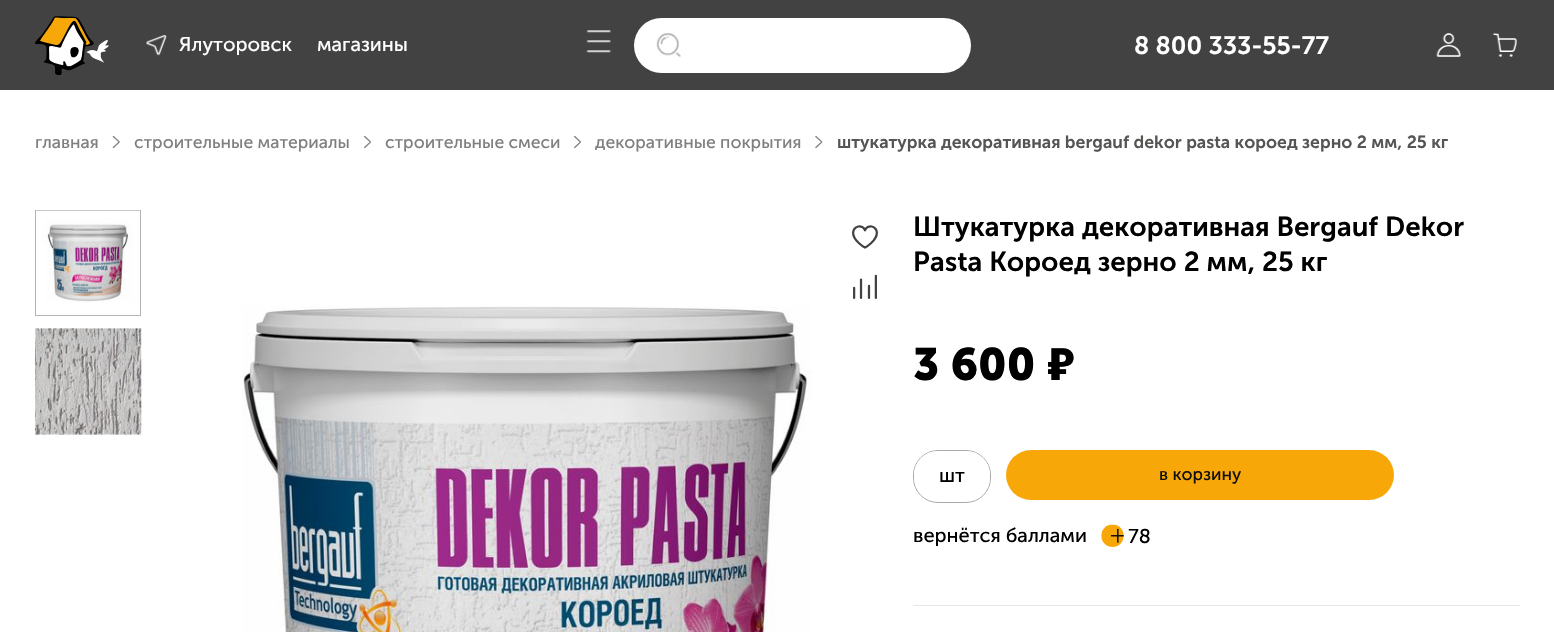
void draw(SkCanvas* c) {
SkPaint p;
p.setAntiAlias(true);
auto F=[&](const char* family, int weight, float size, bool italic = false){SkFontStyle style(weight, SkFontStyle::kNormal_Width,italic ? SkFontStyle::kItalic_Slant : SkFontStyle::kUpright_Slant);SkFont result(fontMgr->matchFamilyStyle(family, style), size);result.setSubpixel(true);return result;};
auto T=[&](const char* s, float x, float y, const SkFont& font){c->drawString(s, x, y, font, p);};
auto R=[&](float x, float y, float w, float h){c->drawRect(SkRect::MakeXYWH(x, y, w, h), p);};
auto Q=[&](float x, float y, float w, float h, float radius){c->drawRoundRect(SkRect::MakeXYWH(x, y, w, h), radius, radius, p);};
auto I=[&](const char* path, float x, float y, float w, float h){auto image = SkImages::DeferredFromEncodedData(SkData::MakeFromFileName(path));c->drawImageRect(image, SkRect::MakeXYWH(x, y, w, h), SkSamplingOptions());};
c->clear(0xffffffff);
p.setColor(0xff424242);
R(0,0,1554,90);
I("1.png",35,16,74,59);
I("2.png",145,35,22,21);
auto f1 = F("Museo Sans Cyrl",400,20);
p.setColor(0xffffffff);
T("Ялуторовск",179,51,f1);
T("магазины",317,51,f1);
I("3.png",586,30,25,23);
Q(634,18,337,55,27.5);
I("4.png",656,33,25,25);
auto f2 = F("Museo Sans Cyrl",600,25);
T("8 800 333-55-77",1134,54,f2);
I("5.png",1436,33,25,24);
I("6.png",1492,33,25,24);
auto f3 = F("Museo Sans Cyrl",400,17.5);
p.setColor(0xff807f7f);
T("главная",35,148,f3);
I("7.png",112,135,8,14);
T("строительные материалы",134,148,f3);
I("8.png",363,135,8,14);
T("строительные смеси",385,148,f3);
I("8.png",573,135,8,14);
T("декоративные покрытия",595,148,f3);
I("9.png",815,135,8,14);
auto f4 = F("Museo Sans Cyrl",600,17.5);
p.setColor(0xff555554);
T("штукатурка декоративная bergauf dekor pasta короед зерно 2 мм, 25 кг",837,148,f4);
p.setStroke(true);
p.setStrokeWidth(1);
p.setColor(0xffb3b3b3);
c->drawRect(SkRect::MakeXYWH(35.5,210.5,105,105),p);
I("10.png",36,210,104,92);
I("11.png",35,328,107,107);
I("12.png",242,306,570,326);
I("13.png",852,225,26,24);
I("14.png",853,274,24,25);
auto f5 = F("Museo Sans Cyrl",600,27.5);
p.setStroke(false);
p.setColor(0xff000000);
T("Штукатурка декоративная Bergauf Dekor",913,236,f5);
T("Pasta Короед зерно 2 мм, 25 кг",913,271,f5);
auto f6 = F("Museo Sans Cyrl",700,45);
T("3 600",913,380,f6);
auto f7 = F("Nunito Sans",900,45);
T("₽",1047,380,f7);
p.setStroke(true);
p.setColor(0xffaaaaa9);
c->drawRoundRect(SkRect::MakeXYWH(913.5,450.5,77,52),24.5,24.5,p);
p.setStroke(false);
p.setColor(0xffffffff);
Q(914,451,76,50,24);
p.setColor(0xff000000);
T("шт",939,482,f1);
p.setColor(0xfff7a707);
Q(1006,450,388,50,25);
p.setColor(0xff11100f);
T("в корзину",1159,480,f3);
p.setColor(0xff000000);
T("вернётся баллами",913,542,f1);
I("15.png",1101,524,23,23);
T("78",1128,543,f1);
p.setColor(0xffe6e6e6);
R(913,605,607,1);
}
